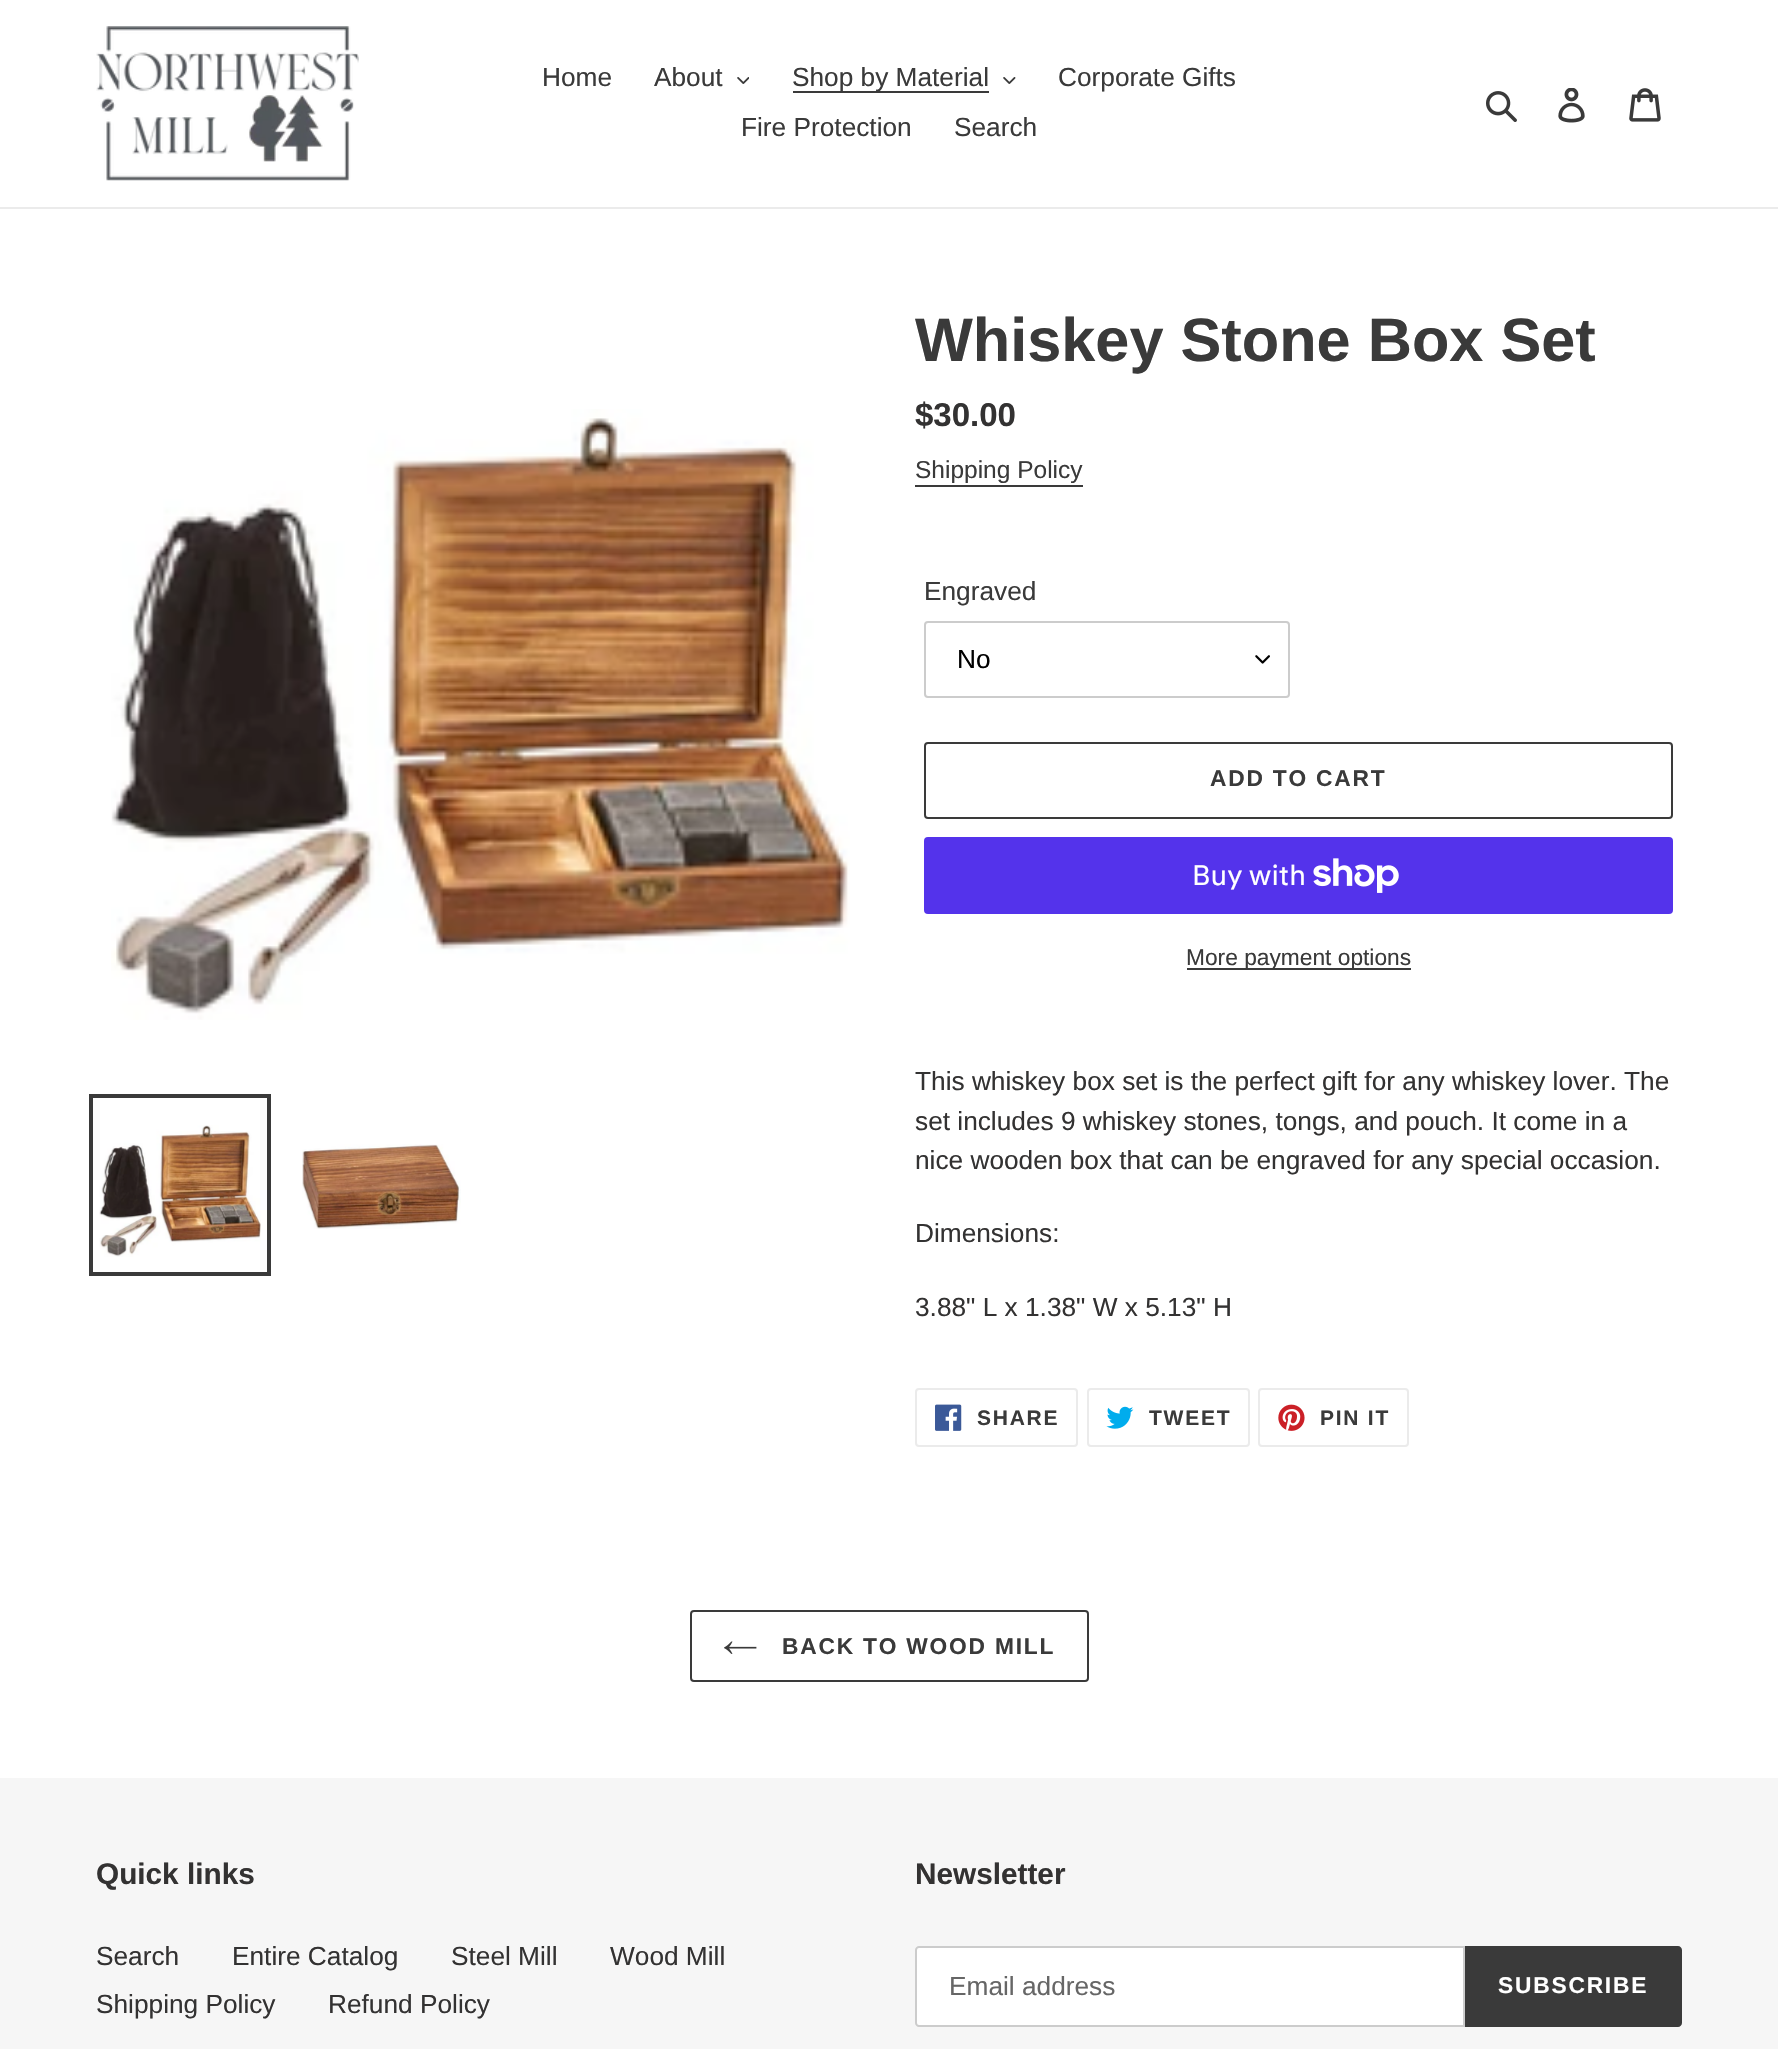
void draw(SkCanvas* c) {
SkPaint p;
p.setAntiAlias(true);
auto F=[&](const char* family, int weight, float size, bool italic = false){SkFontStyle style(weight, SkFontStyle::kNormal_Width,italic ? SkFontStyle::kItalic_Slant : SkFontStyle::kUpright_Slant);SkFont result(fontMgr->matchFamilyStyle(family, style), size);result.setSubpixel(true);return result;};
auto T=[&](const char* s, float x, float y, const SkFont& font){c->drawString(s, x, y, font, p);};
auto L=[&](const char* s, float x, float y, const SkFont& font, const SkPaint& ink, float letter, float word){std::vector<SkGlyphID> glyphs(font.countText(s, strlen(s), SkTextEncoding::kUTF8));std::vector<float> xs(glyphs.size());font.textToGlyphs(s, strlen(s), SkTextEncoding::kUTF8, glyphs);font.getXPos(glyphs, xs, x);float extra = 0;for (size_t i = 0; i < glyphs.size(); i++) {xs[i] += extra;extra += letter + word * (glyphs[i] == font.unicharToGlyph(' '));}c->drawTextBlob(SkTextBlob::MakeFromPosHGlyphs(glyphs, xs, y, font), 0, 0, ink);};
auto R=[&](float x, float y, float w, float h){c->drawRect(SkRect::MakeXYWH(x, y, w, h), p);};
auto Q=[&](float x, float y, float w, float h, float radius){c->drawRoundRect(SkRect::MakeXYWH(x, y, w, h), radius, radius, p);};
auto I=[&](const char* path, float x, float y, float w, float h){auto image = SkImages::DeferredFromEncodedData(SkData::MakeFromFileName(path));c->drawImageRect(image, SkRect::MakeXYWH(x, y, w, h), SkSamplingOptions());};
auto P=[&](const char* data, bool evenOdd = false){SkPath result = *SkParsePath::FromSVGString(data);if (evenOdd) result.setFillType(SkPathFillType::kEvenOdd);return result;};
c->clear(0xffffffff);
p.setColor(0xffebebeb);
R(0,207,1778,2);
I("1.png",96,26,263,155);
auto f1 = F("Liberation Sans",400,26.25);
p.setColor(0xff3a3a3a);
T("Home",542,86,f1);
T("About",654,86,f1);
I("2.png",737,77,12,7);
R(793,91,196,2);
T("Shop by Material",792,86,f1);
I("3.png",1003,77,13,7);
T("Corporate Gifts",1058,86,f1);
T("Fire Protection",741,136,f1);
T("Search",954,136,f1);
I("4.png",1486,91,31,31);
I("5.png",1558,88,27,35);
I("6.png",1629,88,32,34);
I("7.png",111,409,739,611);
p.setStroke(true);
p.setStrokeWidth(4);
c->drawRect(SkRect::MakeXYWH(91,1096,178,178),p);
I("8.png",99,1125,162,132);
I("9.png",302,1144,159,85);
auto f2 = F("Liberation Sans",700,61.25);
p.setStroke(false);
T("Whiskey Stone Box Set",915,361,f2);
auto f3 = F("Liberation Sans",700,33);
p.setColor(0xff333232);
T("$30.00",915,426,f3);
auto f4 = F("Liberation Sans",400,24.5);
p.setColor(0xff3a3a3a);
T("Shipping Policy",915,478,f4);
R(915,485,168,2);
T("Engraved",924,600,f1);
I("10.png",1255,655,15,9);
p.setStroke(true);
p.setStrokeWidth(2);
p.setColor(0xffcccccc);
c->drawRoundRect(SkRect::MakeXYWH(925,622,364,75),3,3,p);
p.setStroke(false);
p.setColor(0xff000000);
T("No",957,668,f1);
p.setStroke(true);
p.setColor(0xff3a3a3a);
c->drawRoundRect(SkRect::MakeXYWH(925,743,747,75),3,3,p);
auto f5 = F("Liberation Sans",700,22.75);
p.setStroke(false);
L("ADD TO CART",1210,786,f5,p,1.8,0);
p.setColor(0xff5433eb);
Q(924,837,749,77,4);
auto f6 = F("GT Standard",400,28);
p.setColor(0xffffffff);
T("Buy with",1192,885,f6);
I("11.png",1313,858,86,35);
p.setColor(0xff3a3a3a);
R(1187,968,224,2);
auto f7 = F("Liberation Sans",400,22.75);
T("More payment options",1186,965,f7);
p.setColor(0xff333232);
T("This whiskey box set is the perfect gift for any whiskey lover. The",915,1090,f1);
T("set includes 9 whiskey stones, tongs, and pouch. It come in a",915,1130,f1);
T("nice wooden box that can be engraved for any special occasion.",915,1169,f1);
T("Dimensions:",915,1242,f1);
T("3.88\" L x 1.38\" W x 5.13\" H",915,1316,f1);
p.setStroke(true);
p.setColor(0xffebebeb);
c->drawRoundRect(SkRect::MakeXYWH(916,1389,161,57),3,3,p);
I("12.png",935,1404,27,27);
auto f8 = F("Liberation Sans",700,21);
p.setStroke(false);
p.setColor(0xff3a3a3a);
L("SHARE",977,1425,f8,p,1.75,0);
p.setStroke(true);
p.setColor(0xffebebeb);
c->drawRoundRect(SkRect::MakeXYWH(1088,1389,161,57),3,3,p);
I("13.png",1106,1406,28,23);
p.setStroke(false);
p.setColor(0xff3a3a3a);
L("TWEET",1149,1425,f8,p,1.75,0);
p.setStroke(true);
p.setColor(0xffebebeb);
c->drawRoundRect(SkRect::MakeXYWH(1259,1389,149,57),3,3,p);
I("14.png",1278,1404,27,27);
p.setStroke(false);
p.setColor(0xff3a3a3a);
L("PIN IT",1320,1425,f8,p,1.75,0);
p.setStroke(true);
c->drawRoundRect(SkRect::MakeXYWH(691,1611,397,70),3,3,p);
I("15.png",724,1641,33,13);
p.setStroke(false);
L("BACK TO WOOD MILL",782,1654,f5,p,1.8,0);
p.setColor(0xfff6f6f6);
R(0,1778,1778,271);
auto f9 = F("Liberation Sans",700,29.75);
p.setColor(0xff333232);
T("Quick links",96,1884,f9);
T("Search",96,1965,f1);
T("Entire Catalog",232,1965,f1);
T("Steel Mill",451,1965,f1);
T("Wood Mill",610,1965,f1);
T("Shipping Policy",96,2013,f1);
T("Refund Policy",328,2013,f1);
T("Newsletter",915,1884,f9);
p.setColor(0xffffffff);
c->drawPath(P("M919 1947h545v79h-545c-1.5 0-3-1.5-3-3v-73c0-1.5 1.5-3 3-3z"),p);
p.setStroke(true);
p.setColor(0xffcccccc);
c->drawPath(P("M919 1947h545v79h-545c-1.5 0-3-1.5-3-3v-73c0-1.5 1.5-3 3-3z"),p);
p.setStroke(false);
p.setColor(0xff666666);
T("Email address",949,1995,f1);
p.setColor(0xff3a3a3a);
c->drawPath(P("M1465 1946h213c2 0 4 2 4 4v73c0 2-2 4-4 4h-213z"),p);
p.setColor(0xffffffff);
L("SUBSCRIBE",1498,1993,f5,p,1.8,0);
}
